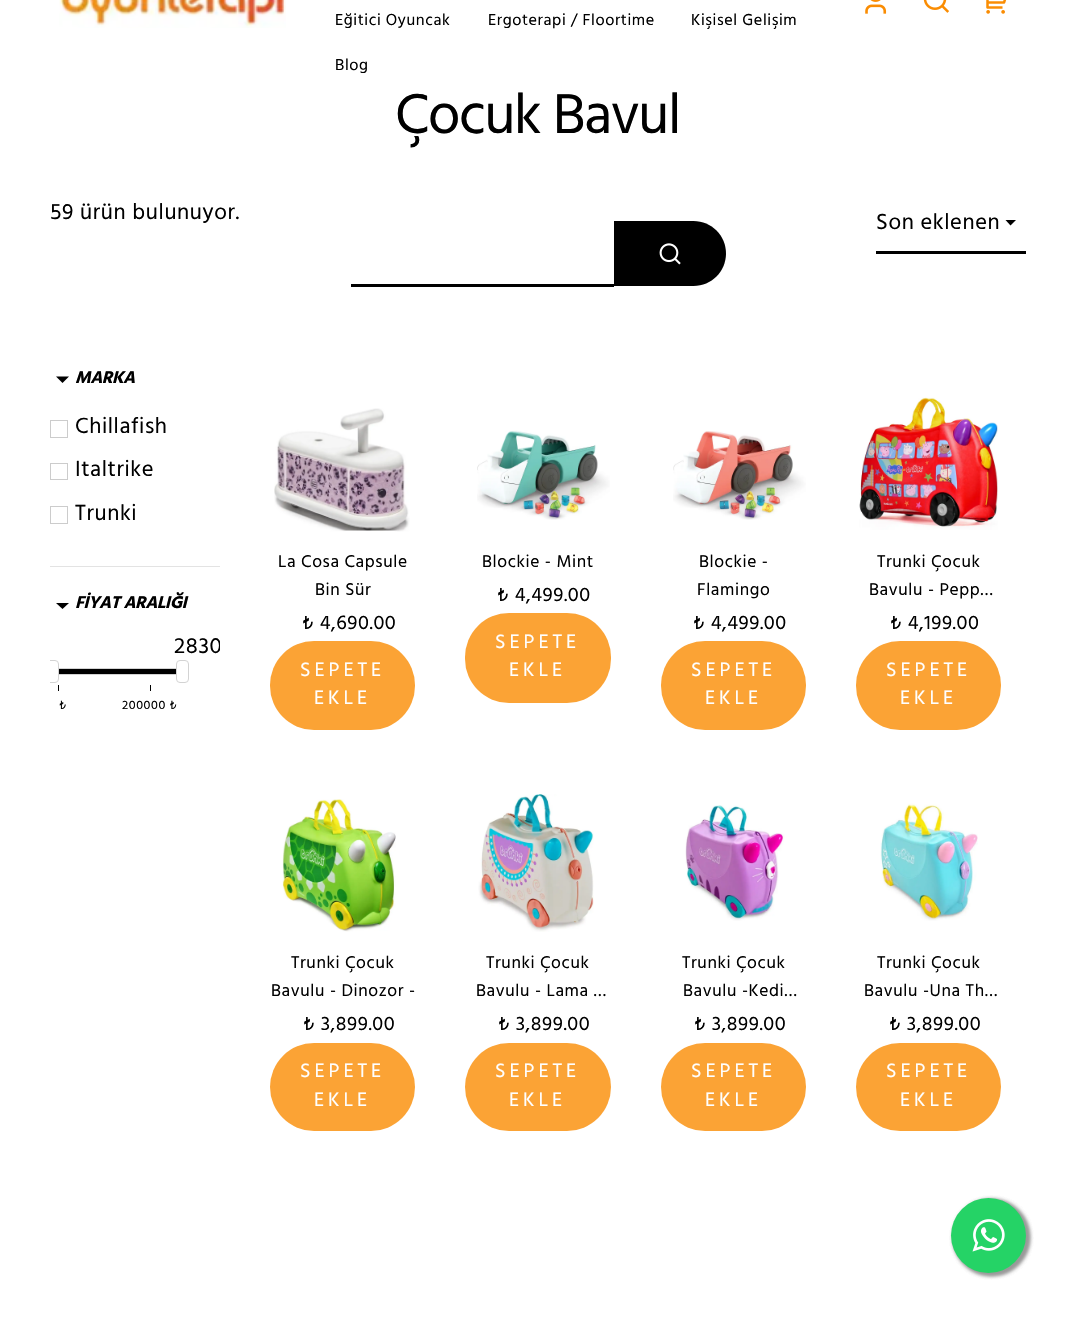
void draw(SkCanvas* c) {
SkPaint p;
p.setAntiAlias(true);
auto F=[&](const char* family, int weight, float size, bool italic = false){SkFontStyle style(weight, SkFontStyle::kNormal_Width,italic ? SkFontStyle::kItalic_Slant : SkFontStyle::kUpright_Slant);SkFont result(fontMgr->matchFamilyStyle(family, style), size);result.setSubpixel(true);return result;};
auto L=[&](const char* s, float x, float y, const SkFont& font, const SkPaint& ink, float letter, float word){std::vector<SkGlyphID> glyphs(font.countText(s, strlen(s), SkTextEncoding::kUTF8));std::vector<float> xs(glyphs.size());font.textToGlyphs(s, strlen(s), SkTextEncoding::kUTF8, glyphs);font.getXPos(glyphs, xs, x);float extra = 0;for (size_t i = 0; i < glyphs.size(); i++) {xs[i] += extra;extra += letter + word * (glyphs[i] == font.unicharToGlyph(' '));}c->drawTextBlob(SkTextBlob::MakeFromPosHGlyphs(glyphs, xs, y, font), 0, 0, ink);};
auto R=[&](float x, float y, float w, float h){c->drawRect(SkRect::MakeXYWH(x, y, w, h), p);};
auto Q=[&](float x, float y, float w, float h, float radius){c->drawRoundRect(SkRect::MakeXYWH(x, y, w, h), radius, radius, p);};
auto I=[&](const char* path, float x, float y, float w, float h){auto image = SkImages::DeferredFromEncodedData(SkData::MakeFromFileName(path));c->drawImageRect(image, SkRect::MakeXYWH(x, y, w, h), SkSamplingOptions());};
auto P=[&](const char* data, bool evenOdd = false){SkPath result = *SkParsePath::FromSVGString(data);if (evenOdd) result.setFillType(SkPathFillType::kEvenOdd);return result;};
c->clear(0xffffffff);
I("1.png",59,0,227,28);
I("2.png",865,0,22,14);
I("3.png",923,0,26,13);
I("4.png",986,0,21,14);
auto f1 = F("Hind",400,16.25);
p.setColor(0xff000000);
L("Eğitici Oyuncak",335,25,f1,p,.6,0);
L("Ergoterapi / Floortime",488,25,f1,p,.6,0);
L("Kişisel Gelişim",691,25,f1,p,.6,0);
L("Blog",335,70,f1,p,.6,0);
auto f2 = F("Hind",400,57.5);
L("Çocuk Bavul",395,133,f2,p,-1.5,0);
auto f3 = F("Hind",400,22.5);
L("59 ürün bulunuyor.",50,219,f3,p,.6,0);
R(351,284,263,3);
c->drawPath(P("M614 221h79.5c18 0 32.5 14.5 32.5 32.5c0 18-14.5 32.5-32.5 32.5h-79.5z"),p);
I("5.png",659,243,22,22);
R(876,251,150,3);
L("Son eklenen",876,229,f3,p,.6,0);
c->drawPath(P("M1010.5 225.5l-5-5.5h10.5z"),p);
p.setColor(0xffe3e3e3);
R(50,566,170,1);
p.setColor(0xff000000);
c->drawPath(P("M62.5 383l-6.5-6.5h13z"),p);
auto f4 = F("Hind",700,17.5,true);
L("MARKA",75,383,f4,p,-.5,0);
p.setStroke(true);
p.setStrokeWidth(1);
p.setColor(0xffcccccc);
c->drawRect(SkRect::MakeXYWH(50.5,420.5,17,17),p);
p.setStroke(false);
p.setColor(0xff000000);
L("Chillafish",75,433,f3,p,.6,0);
p.setStroke(true);
p.setColor(0xffcccccc);
c->drawRect(SkRect::MakeXYWH(50.5,463.5,17,16),p);
p.setStroke(false);
p.setColor(0xff000000);
L("Italtrike",75,476,f3,p,.6,0);
p.setStroke(true);
p.setColor(0xffcccccc);
c->drawRect(SkRect::MakeXYWH(50.5,506.5,17,17),p);
p.setStroke(false);
p.setColor(0xff000000);
L("Trunki",75,520,f3,p,.6,0);
c->drawPath(P("M62.5 609l-6.5-6h13z"),p);
L("FİYAT ARALIĞI",75,608,f4,p,-.5,0);
c->save();
c->clipRect(SkRect::MakeXYWH(50,636,170,88));
L("2830",174,653,f3,p,.6,0);
c->restore();
p.setStroke(true);
p.setColor(0xffd3d3d3);
c->drawRect(SkRect::MakeXYWH(58.5,668.5,129,6),p);
p.setStroke(false);
p.setColor(0xff000000);
R(58,669,118,5);
p.setColor(0xffffffff);
c->drawPath(P("M50 660h5c2 0 4 2 4 4v15c0 2-2 4-4 4h-5z"),p);
c->save();
c->clipRect(SkRect::MakeXYWH(50,636,170,88));
p.setStroke(true);
p.setColor(0xffd3d3d3);
c->drawRoundRect(SkRect::MakeXYWH(46.5,660.5,12,22),3.5,3.5,p);
c->restore();
p.setStroke(false);
p.setColor(0xffffffff);
c->drawRoundRect(SkRect::MakeXYWH(176.5,660.5,12,22),3.5,3.5,p);
p.setStroke(true);
p.setColor(0xffd3d3d3);
c->drawRoundRect(SkRect::MakeXYWH(176.5,660.5,12,22),3.5,3.5,p);
p.setStroke(false);
p.setColor(0xff000000);
R(58,685,1,6);
auto f5 = F("Hind",400,12.5);
L("₺",59,709,f5,p,.6,0);
R(150,685,1,6);
L("200000 ₺",122,709,f5,p,.6,0);
I("6.png",274,408,136,124);
auto f6 = F("Hind",400,17.5);
L("La Cosa Capsule",278,567,f6,p,.6,0);
L("Bin Sür",315,595,f6,p,.6,0);
auto f7 = F("Hind",400,20);
L("₺ 4,690.00",302,629,f7,p,.6,0);
p.setColor(0xfffba335);
Q(270,641,145,89,44);
p.setColor(0xffffffff);
L("SEPETE",300,676,f7,p,4,0);
L("EKLE",314,704,f7,p,4,0);
I("7.png",477,430,133,90);
p.setColor(0xff000000);
L("Blockie - Mint",482,567,f6,p,.6,0);
L("₺ 4,499.00",497,601,f7,p,.6,0);
p.setColor(0xfffba335);
Q(465,613,146,90,44);
p.setColor(0xffffffff);
L("SEPETE",495,648,f7,p,4,0);
L("EKLE",509,676,f7,p,4,0);
I("8.png",673,431,133,89);
p.setColor(0xff000000);
L("Blockie -",699,567,f6,p,.6,0);
L("Flamingo",697,595,f6,p,.6,0);
L("₺ 4,499.00",693,629,f7,p,.6,0);
p.setColor(0xfffba335);
Q(661,641,145,89,44);
p.setColor(0xffffffff);
L("SEPETE",691,676,f7,p,4,0);
L("EKLE",705,704,f7,p,4,0);
I("9.png",859,397,139,133);
p.setColor(0xff000000);
L("Trunki Çocuk",877,567,f6,p,.6,0);
L("Bavulu - Pepp…",869,595,f6,p,.6,0);
L("₺ 4,199.00",890,629,f7,p,.6,0);
p.setColor(0xfffba335);
Q(856,641,145,89,44);
p.setColor(0xffffffff);
L("SEPETE",886,676,f7,p,4,0);
L("EKLE",900,704,f7,p,4,0);
I("10.png",282,799,114,133);
p.setColor(0xff000000);
L("Trunki Çocuk",291,968,f6,p,.6,0);
L("Bavulu - Dinozor -",271,996,f6,p,.6,0);
L("₺ 3,899.00",303,1030,f7,p,.6,0);
p.setColor(0xfffba335);
Q(270,1043,145,88,44);
p.setColor(0xffffffff);
L("SEPETE",300,1077,f7,p,4,0);
L("EKLE",314,1106,f7,p,4,0);
I("11.png",478,794,116,138);
p.setColor(0xff000000);
L("Trunki Çocuk",486,968,f6,p,.6,0);
L("Bavulu - Lama …",476,996,f6,p,.6,0);
L("₺ 3,899.00",498,1030,f7,p,.6,0);
p.setColor(0xfffba335);
Q(465,1043,146,88,44);
p.setColor(0xffffffff);
L("SEPETE",495,1077,f7,p,4,0);
L("EKLE",509,1106,f7,p,4,0);
I("12.png",685,805,100,116);
p.setColor(0xff000000);
L("Trunki Çocuk",682,968,f6,p,.6,0);
L("Bavulu -Kedi…",683,996,f6,p,.6,0);
L("₺ 3,899.00",694,1030,f7,p,.6,0);
p.setColor(0xfffba335);
Q(661,1043,145,88,44);
p.setColor(0xffffffff);
L("SEPETE",691,1077,f7,p,4,0);
L("EKLE",705,1106,f7,p,4,0);
I("13.png",880,803,98,118);
p.setColor(0xff000000);
L("Trunki Çocuk",877,968,f6,p,.6,0);
L("Bavulu -Una Th…",864,996,f6,p,.6,0);
L("₺ 3,899.00",889,1030,f7,p,.6,0);
p.setColor(0xfffba335);
Q(856,1043,145,88,44);
p.setColor(0xffffffff);
L("SEPETE",886,1077,f7,p,4,0);
L("EKLE",900,1106,f7,p,4,0);
p.setColor(0xff999999);
p.setMaskFilter(SkMaskFilter::MakeBlur(kNormal_SkBlurStyle, 2));
c->drawRoundRect(SkRect::MakeXYWH(954,1200,75,75),37.5,37.5,p);
p.setMaskFilter(nullptr);
p.setMaskFilter(SkMaskFilter::MakeBlur(kNormal_SkBlurStyle, 2));
c->drawRoundRect(SkRect::MakeXYWH(954,1200,75,75),37.5,37.5,p);
p.setMaskFilter(nullptr);
p.setMaskFilter(SkMaskFilter::MakeBlur(kNormal_SkBlurStyle, 2));
c->drawRoundRect(SkRect::MakeXYWH(954,1200,75,75),37.5,37.5,p);
p.setMaskFilter(nullptr);
p.setColor(0xff25d366);
c->drawCircle(988.5,1235.5,37.5,p);
I("14.png",972,1219,33,33);
}
